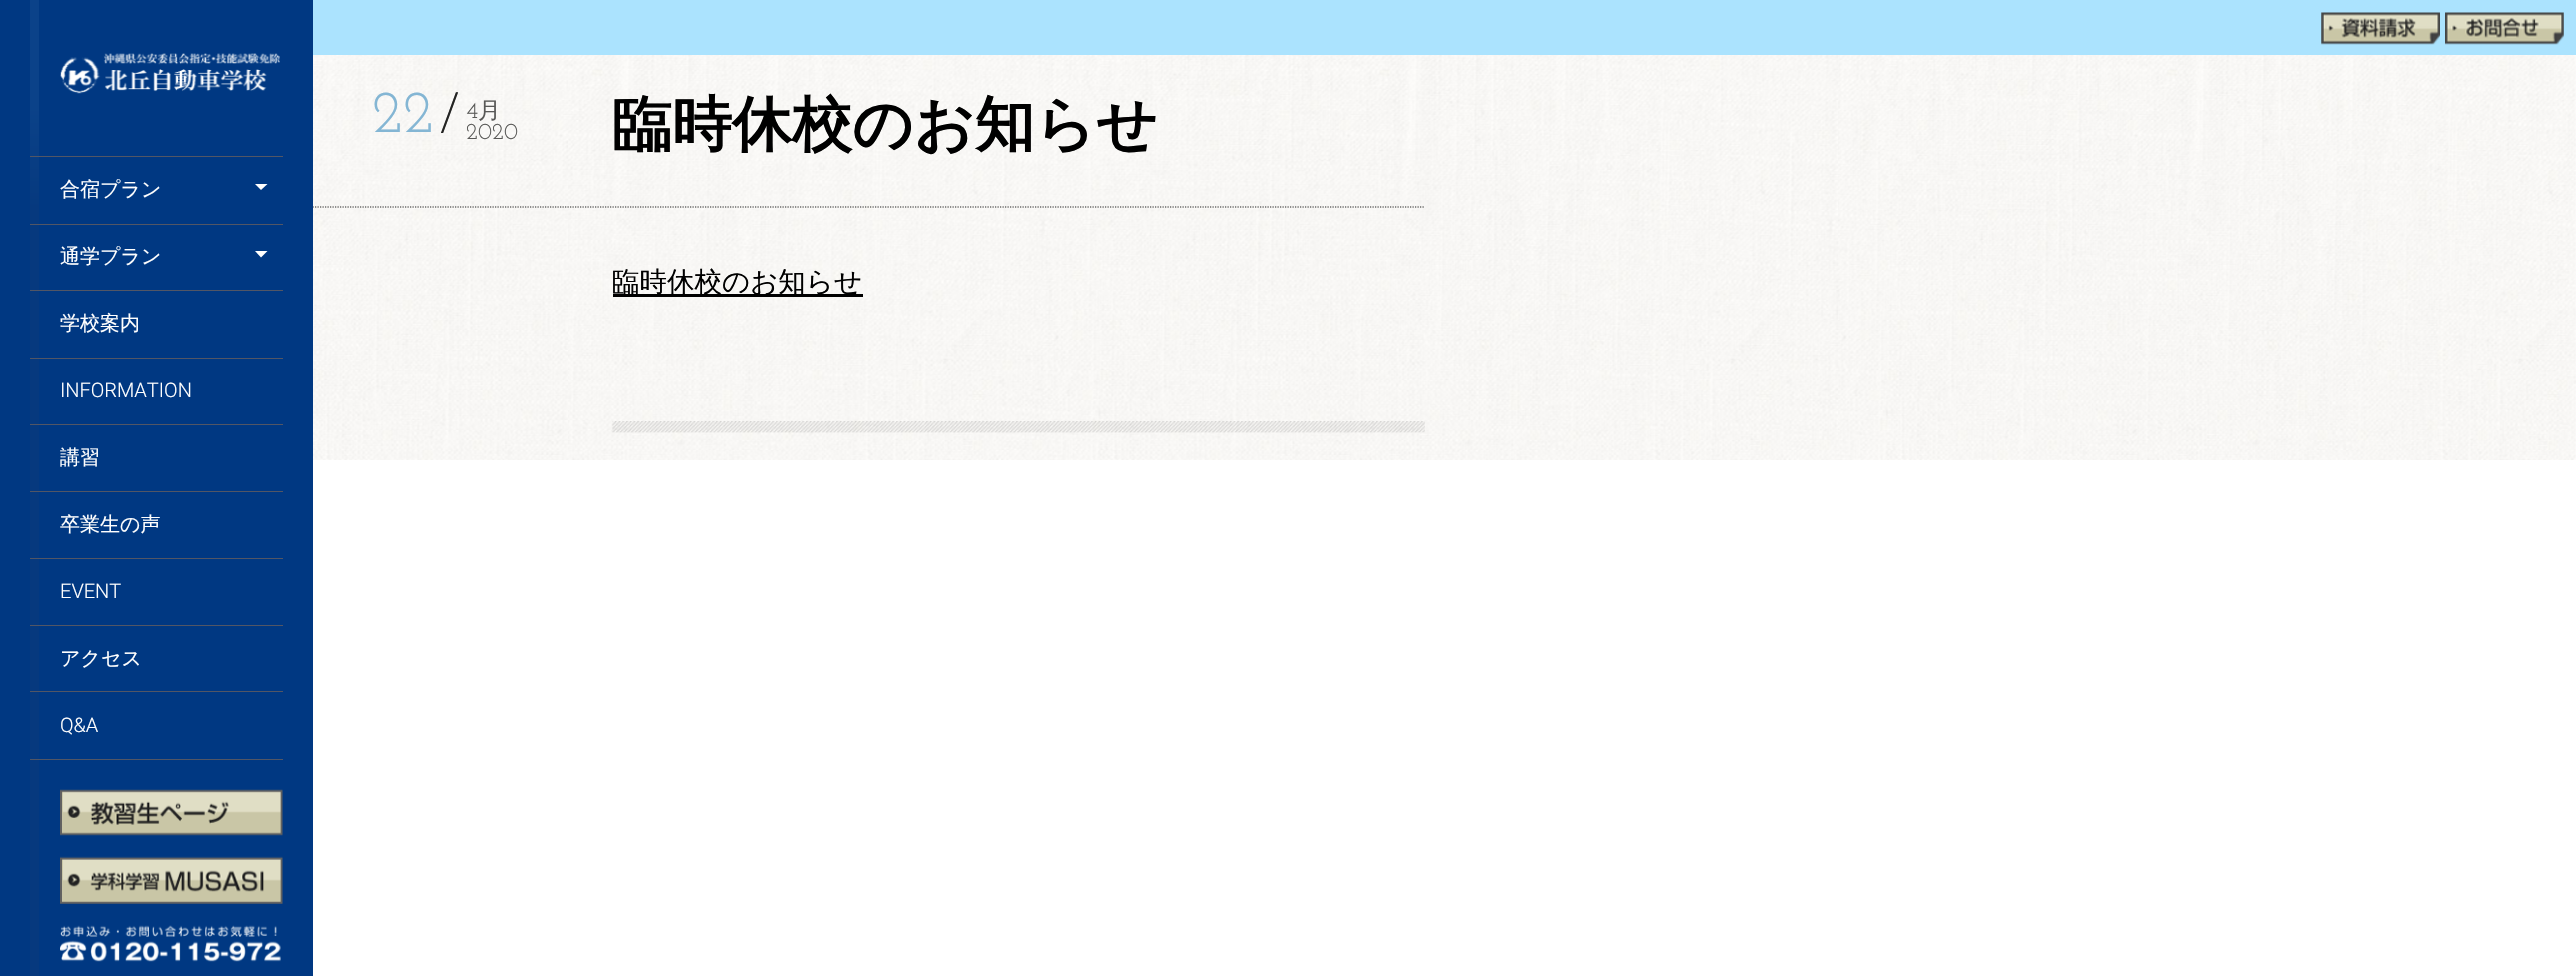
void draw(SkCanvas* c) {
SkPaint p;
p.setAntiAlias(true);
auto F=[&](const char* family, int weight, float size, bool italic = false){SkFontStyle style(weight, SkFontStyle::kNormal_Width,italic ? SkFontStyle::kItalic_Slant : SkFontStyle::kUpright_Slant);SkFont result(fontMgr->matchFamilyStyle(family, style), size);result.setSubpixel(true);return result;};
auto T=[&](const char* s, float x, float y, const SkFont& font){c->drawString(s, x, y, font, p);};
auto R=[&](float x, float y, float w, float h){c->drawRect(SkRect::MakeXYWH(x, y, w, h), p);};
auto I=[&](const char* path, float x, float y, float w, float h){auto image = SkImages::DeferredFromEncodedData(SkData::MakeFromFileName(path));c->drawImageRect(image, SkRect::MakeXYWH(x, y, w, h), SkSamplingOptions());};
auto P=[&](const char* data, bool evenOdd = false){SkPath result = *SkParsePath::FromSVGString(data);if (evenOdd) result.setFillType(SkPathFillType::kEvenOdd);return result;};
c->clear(0xffffffff);
I("5.png",313,55,2263,405);
p.setStroke(true);
p.setStrokeWidth(1.2);
p.setColor(0xff242423);
p.setPathEffect(SkDashPathEffect::Make({{1.25f,1.25f}}, 0));
c->drawPath(P("M312.5 207h1112.5"),p);
p.setPathEffect(nullptr);
p.setStroke(false);
p.setColor(0xff003882);
R(0,0,313,976);
p.setColor(0xff06397e);
R(30,210,9,766);
{
const SkColor colors[] = {0xff0b4289,0xff06397e};
const float stops[] = {.5,1};
const SkPoint ends[] = {{31,0}, {31,210}};
p.setShader(SkGradientShader::MakeLinear(ends, colors, stops, 2, SkTileMode::kClamp));
p.setAlpha(255);
}
R(30,0,9,210);
I("1.png",60,53,220,41);
p.setShader(nullptr);
p.setColor(0xff525665);
R(30,156,253,1);
R(30,224,253,1);
auto f1 = F("WenQuanYi Zen Hei",500,20);
p.setColor(0xffffffff);
T("合宿プラン",60,196,f1);
c->drawPath(P("M255 184h12.5l-6.5 6z"),p);
p.setColor(0xff525665);
R(30,290,253,1);
p.setColor(0xffffffff);
T("通学プラン",60,263,f1);
c->drawPath(P("M255 251h12.5l-6.5 6.5z"),p);
p.setColor(0xff525665);
R(30,358,253,1);
p.setColor(0xffffffff);
T("学校案内",60,330,f1);
p.setColor(0xff525665);
R(30,424,253,1);
auto f2 = F("Roboto",300,20);
p.setColor(0xffffffff);
T("INFORMATION",60,397,f2);
p.setColor(0xff525665);
R(30,491,253,1);
p.setColor(0xffffffff);
T("講習",60,464,f1);
p.setColor(0xff525665);
R(30,558,253,1);
p.setColor(0xffffffff);
T("卒業生の声",60,531,f1);
p.setColor(0xff525665);
R(30,625,253,1);
p.setColor(0xffffffff);
T("EVENT",60,598,f2);
p.setColor(0xff525665);
R(30,691,253,1);
p.setColor(0xffffffff);
T("アクセス",60,665,f1);
p.setColor(0xff525665);
R(30,759,253,1);
p.setColor(0xffffffff);
T("Q&A",60,732,f2);
I("2.png",60,789,223,47);
I("3.png",60,856,223,48);
I("4.png",60,925,221,37);
p.setColor(0xffabe3fe);
R(313,0,2263,55);
I("6.png",2321,12,119,33);
I("7.png",2445,12,119,33);
auto f3 = F("Josefin Slab",400,60);
p.setColor(0xff84b6d4);
T("22",372,132,f3);
auto f4 = F("Josefin Slab",400,54);
p.setColor(0xff242423);
T("/",440,132,f4);
auto f5 = F("Josefin Slab",400,23);
p.setColor(0xff595957);
T("4",466,118,f5);
auto f6 = F("WenQuanYi Zen Hei",500,23);
T("月",478,118,f6);
T("2020",466,139,f5);
auto f7 = F("WenQuanYi Zen Hei",700,60);
p.setColor(0xff000000);
T("臨時休校のお知らせ",612,145,f7);
R(613,294,250,3);
auto f8 = F("WenQuanYi Zen Hei",500,27.5);
T("臨時休校のお知らせ",612,291,f8);
I("8.png",612,421,813,12);
}
